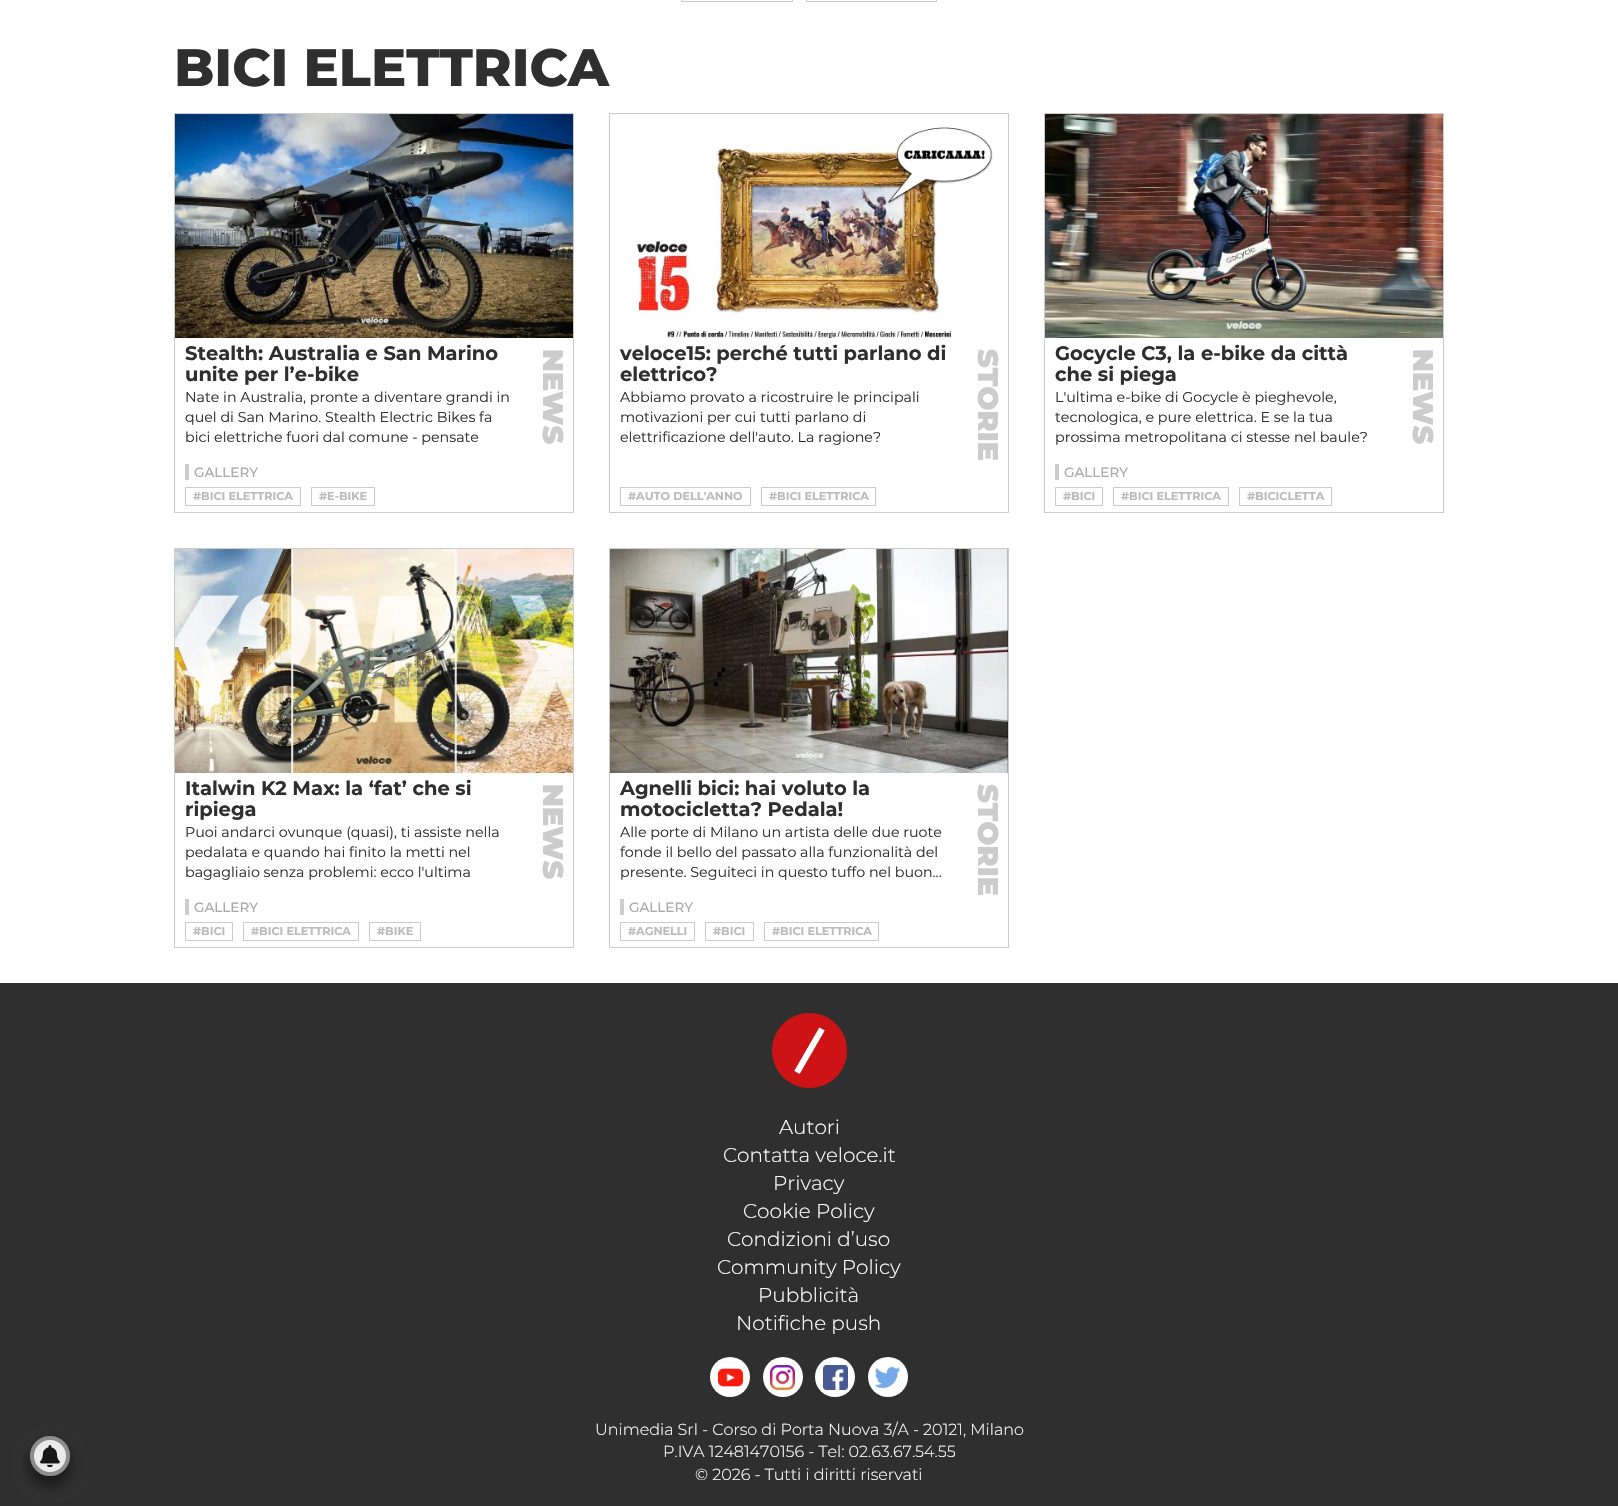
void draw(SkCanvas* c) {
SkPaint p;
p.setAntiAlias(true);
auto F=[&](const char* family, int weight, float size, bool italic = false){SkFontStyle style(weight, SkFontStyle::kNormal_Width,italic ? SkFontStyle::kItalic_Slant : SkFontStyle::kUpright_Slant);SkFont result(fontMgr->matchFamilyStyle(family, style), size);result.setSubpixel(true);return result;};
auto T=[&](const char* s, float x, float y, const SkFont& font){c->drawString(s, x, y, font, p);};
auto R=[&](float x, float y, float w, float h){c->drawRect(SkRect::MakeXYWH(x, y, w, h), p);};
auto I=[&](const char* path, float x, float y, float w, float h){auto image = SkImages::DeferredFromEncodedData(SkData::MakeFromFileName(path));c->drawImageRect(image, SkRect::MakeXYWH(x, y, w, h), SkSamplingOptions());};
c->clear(0xffffffff);
p.setStroke(true);
p.setStrokeWidth(1);
p.setColor(0xffcccccc);
c->drawRect(SkRect::MakeXYWH(681.5,-.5,111,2),p);
c->drawRect(SkRect::MakeXYWH(806.5,-.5,130,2),p);
auto f1 = F("Montserrat",800,52.5);
p.setStroke(false);
p.setColor(0xff2f2f2f);
T("BICI ELETTRICA",174,86,f1);
p.setStroke(true);
p.setColor(0xffcccccc);
c->drawRect(SkRect::MakeXYWH(174.5,113.5,399,399),p);
I("1.png",175,114,398,224);
auto f2 = F("Montserrat",700,19.5);
p.setStroke(false);
p.setColor(0xff2f2f2f);
T("Stealth: Australia e San Marino",185,360,f2);
T("unite per l’e-bike",185,381,f2);
auto f3 = F("Montserrat",400,14.25);
T("Nate in Australia, pronte a diventare grandi in",185,402,f3);
T("quel di San Marino. Stealth Electric Bikes fa",185,422,f3);
T("bici elettriche fuori dal comune - pensate",185,442,f3);
auto f4 = F("Montserrat",900,28.5);
p.setColor(0xffcccccc);
c->save();
c->rotate(90,543,349);
T("NEWS",543,349,f4);
c->restore();
R(185,464,4,16);
auto f5 = F("Montserrat",500,13.5);
p.setColor(0xffaaaaaa);
T("GALLERY",194,477,f5);
p.setStroke(true);
p.setColor(0xffcccccc);
c->drawRect(SkRect::MakeXYWH(185.5,487.5,115,18),p);
auto f6 = F("Montserrat",700,11.25);
p.setStroke(false);
p.setColor(0xffbbbbbb);
T("#BICI ELETTRICA",193,500,f6);
p.setStroke(true);
p.setColor(0xffcccccc);
c->drawRect(SkRect::MakeXYWH(311.5,487.5,63,18),p);
p.setStroke(false);
p.setColor(0xffbbbbbb);
T("#E-BIKE",319,500,f6);
p.setStroke(true);
p.setColor(0xffcccccc);
c->drawRect(SkRect::MakeXYWH(609.5,113.5,399,399),p);
I("2.png",610,114,398,224);
p.setStroke(false);
p.setColor(0xff2f2f2f);
T("veloce15: perché tutti parlano di",620,360,f2);
T("elettrico?",620,381,f2);
T("Abbiamo provato a ricostruire le principali",620,402,f3);
T("motivazioni per cui tutti parlano di",620,422,f3);
T("elettrificazione dell'auto. La ragione?",620,442,f3);
p.setColor(0xffcccccc);
c->save();
c->rotate(90,978,349);
T("STORIE",978,349,f4);
c->restore();
p.setStroke(true);
c->drawRect(SkRect::MakeXYWH(620.5,487.5,130,18),p);
p.setStroke(false);
p.setColor(0xffbbbbbb);
T("#AUTO DELL'ANNO",628,500,f6);
p.setStroke(true);
p.setColor(0xffcccccc);
c->drawRect(SkRect::MakeXYWH(761.5,487.5,114,18),p);
p.setStroke(false);
p.setColor(0xffbbbbbb);
T("#BICI ELETTRICA",769,500,f6);
p.setStroke(true);
p.setColor(0xffcccccc);
c->drawRect(SkRect::MakeXYWH(1044.5,113.5,399,399),p);
I("3.png",1045,114,398,224);
p.setStroke(false);
p.setColor(0xff2f2f2f);
T("Gocycle C3, la e-bike da città",1055,360,f2);
T("che si piega",1055,381,f2);
T("L'ultima e-bike di Gocycle è pieghevole,",1055,402,f3);
T("tecnologica, e pure elettrica. E se la tua",1055,422,f3);
T("prossima metropolitana ci stesse nel baule?",1055,442,f3);
p.setColor(0xffcccccc);
c->save();
c->rotate(90,1413,349);
T("NEWS",1413,349,f4);
c->restore();
R(1055,464,4,16);
p.setColor(0xffaaaaaa);
T("GALLERY",1064,477,f5);
p.setStroke(true);
p.setColor(0xffcccccc);
c->drawRect(SkRect::MakeXYWH(1055.5,487.5,47,18),p);
p.setStroke(false);
p.setColor(0xffbbbbbb);
T("#BICI",1063,500,f6);
p.setStroke(true);
p.setColor(0xffcccccc);
c->drawRect(SkRect::MakeXYWH(1113.5,487.5,115,18),p);
p.setStroke(false);
p.setColor(0xffbbbbbb);
T("#BICI ELETTRICA",1121,500,f6);
p.setStroke(true);
p.setColor(0xffcccccc);
c->drawRect(SkRect::MakeXYWH(1239.5,487.5,92,18),p);
p.setStroke(false);
p.setColor(0xffbbbbbb);
T("#BICICLETTA",1247,500,f6);
p.setStroke(true);
p.setColor(0xffcccccc);
c->drawRect(SkRect::MakeXYWH(174.5,548.5,399,399),p);
I("4.png",175,549,398,224);
p.setStroke(false);
p.setColor(0xff2f2f2f);
T("Italwin K2 Max: la ‘fat’ che si",185,795,f2);
T("ripiega",185,816,f2);
T("Puoi andarci ovunque (quasi), ti assiste nella",185,837,f3);
T("pedalata e quando hai finito la metti nel",185,857,f3);
T("bagagliaio senza problemi: ecco l'ultima",185,877,f3);
p.setColor(0xffcccccc);
c->save();
c->rotate(90,543,784);
T("NEWS",543,784,f4);
c->restore();
R(185,899,4,16);
p.setColor(0xffaaaaaa);
T("GALLERY",194,912,f5);
p.setStroke(true);
p.setColor(0xffcccccc);
c->drawRect(SkRect::MakeXYWH(185.5,922.5,47,18),p);
p.setStroke(false);
p.setColor(0xffbbbbbb);
T("#BICI",193,935,f6);
p.setStroke(true);
p.setColor(0xffcccccc);
c->drawRect(SkRect::MakeXYWH(243.5,922.5,115,18),p);
p.setStroke(false);
p.setColor(0xffbbbbbb);
T("#BICI ELETTRICA",251,935,f6);
p.setStroke(true);
p.setColor(0xffcccccc);
c->drawRect(SkRect::MakeXYWH(369.5,922.5,51,18),p);
p.setStroke(false);
p.setColor(0xffbbbbbb);
T("#BIKE",377,935,f6);
p.setStroke(true);
p.setColor(0xffcccccc);
c->drawRect(SkRect::MakeXYWH(609.5,548.5,399,399),p);
I("5.png",610,549,398,224);
p.setStroke(false);
p.setColor(0xff2f2f2f);
T("Agnelli bici: hai voluto la",620,795,f2);
T("motocicletta? Pedala!",620,816,f2);
T("Alle porte di Milano un artista delle due ruote",620,837,f3);
T("fonde il bello del passato alla funzionalità del",620,857,f3);
T("presente. Seguiteci in questo tuffo nel buon...",620,877,f3);
p.setColor(0xffcccccc);
c->save();
c->rotate(90,978,784);
T("STORIE",978,784,f4);
c->restore();
R(620,899,4,16);
p.setColor(0xffaaaaaa);
T("GALLERY",629,912,f5);
p.setStroke(true);
p.setColor(0xffcccccc);
c->drawRect(SkRect::MakeXYWH(620.5,922.5,74,18),p);
p.setStroke(false);
p.setColor(0xffbbbbbb);
T("#AGNELLI",628,935,f6);
p.setStroke(true);
p.setColor(0xffcccccc);
c->drawRect(SkRect::MakeXYWH(705.5,922.5,48,18),p);
p.setStroke(false);
p.setColor(0xffbbbbbb);
T("#BICI",713,935,f6);
p.setStroke(true);
p.setColor(0xffcccccc);
c->drawRect(SkRect::MakeXYWH(764.5,922.5,114,18),p);
p.setStroke(false);
p.setColor(0xffbbbbbb);
T("#BICI ELETTRICA",772,935,f6);
p.setColor(0xff2f2f2f);
R(0,983,1618,523);
p.setColor(0x99050505);
p.setMaskFilter(SkMaskFilter::MakeBlur(kNormal_SkBlurStyle, 7.5));
c->drawRoundRect(SkRect::MakeXYWH(30,1445,40,40),20,20,p);
p.setMaskFilter(nullptr);
p.setColor(0xffeaeaea);
c->drawCircle(50,1456,18,p);
p.setStroke(true);
p.setStrokeWidth(4);
p.setColor(0xff8d8d8d);
c->drawCircle(50,1456,18,p);
I("6.png",40,1445,20,22);
I("7.png",772,1013,75,75);
auto f7 = F("Montserrat",300,20);
p.setStroke(false);
p.setColor(0xffffffff);
T("Autori",779,1134,f7);
T("Contatta veloce.it",723,1162,f7);
T("Privacy",773,1190,f7);
T("Cookie Policy",743,1218,f7);
T("Condizioni d’uso",727,1246,f7);
T("Community Policy",717,1274,f7);
T("Pubblicità",758,1302,f7);
T("Notifiche push",736,1330,f7);
c->drawCircle(730,1377,20,p);
I("8.png",718,1368,25,19);
c->drawCircle(783,1377,20,p);
I("9.png",770,1365,25,25);
c->drawCircle(835,1377,20,p);
I("10.png",823,1365,25,25);
c->drawCircle(888,1377,20,p);
I("11.png",875,1366,25,23);
auto f8 = F("Montserrat",300,16);
T("Unimedia Srl - Corso di Porta Nuova 3/A - 20121, Milano",595,1435,f8);
T("P.IVA 12481470156 - Tel: 02.63.67.54.55",663,1457,f8);
T("© 2026 - Tutti i diritti riservati",695,1480,f8);
}
